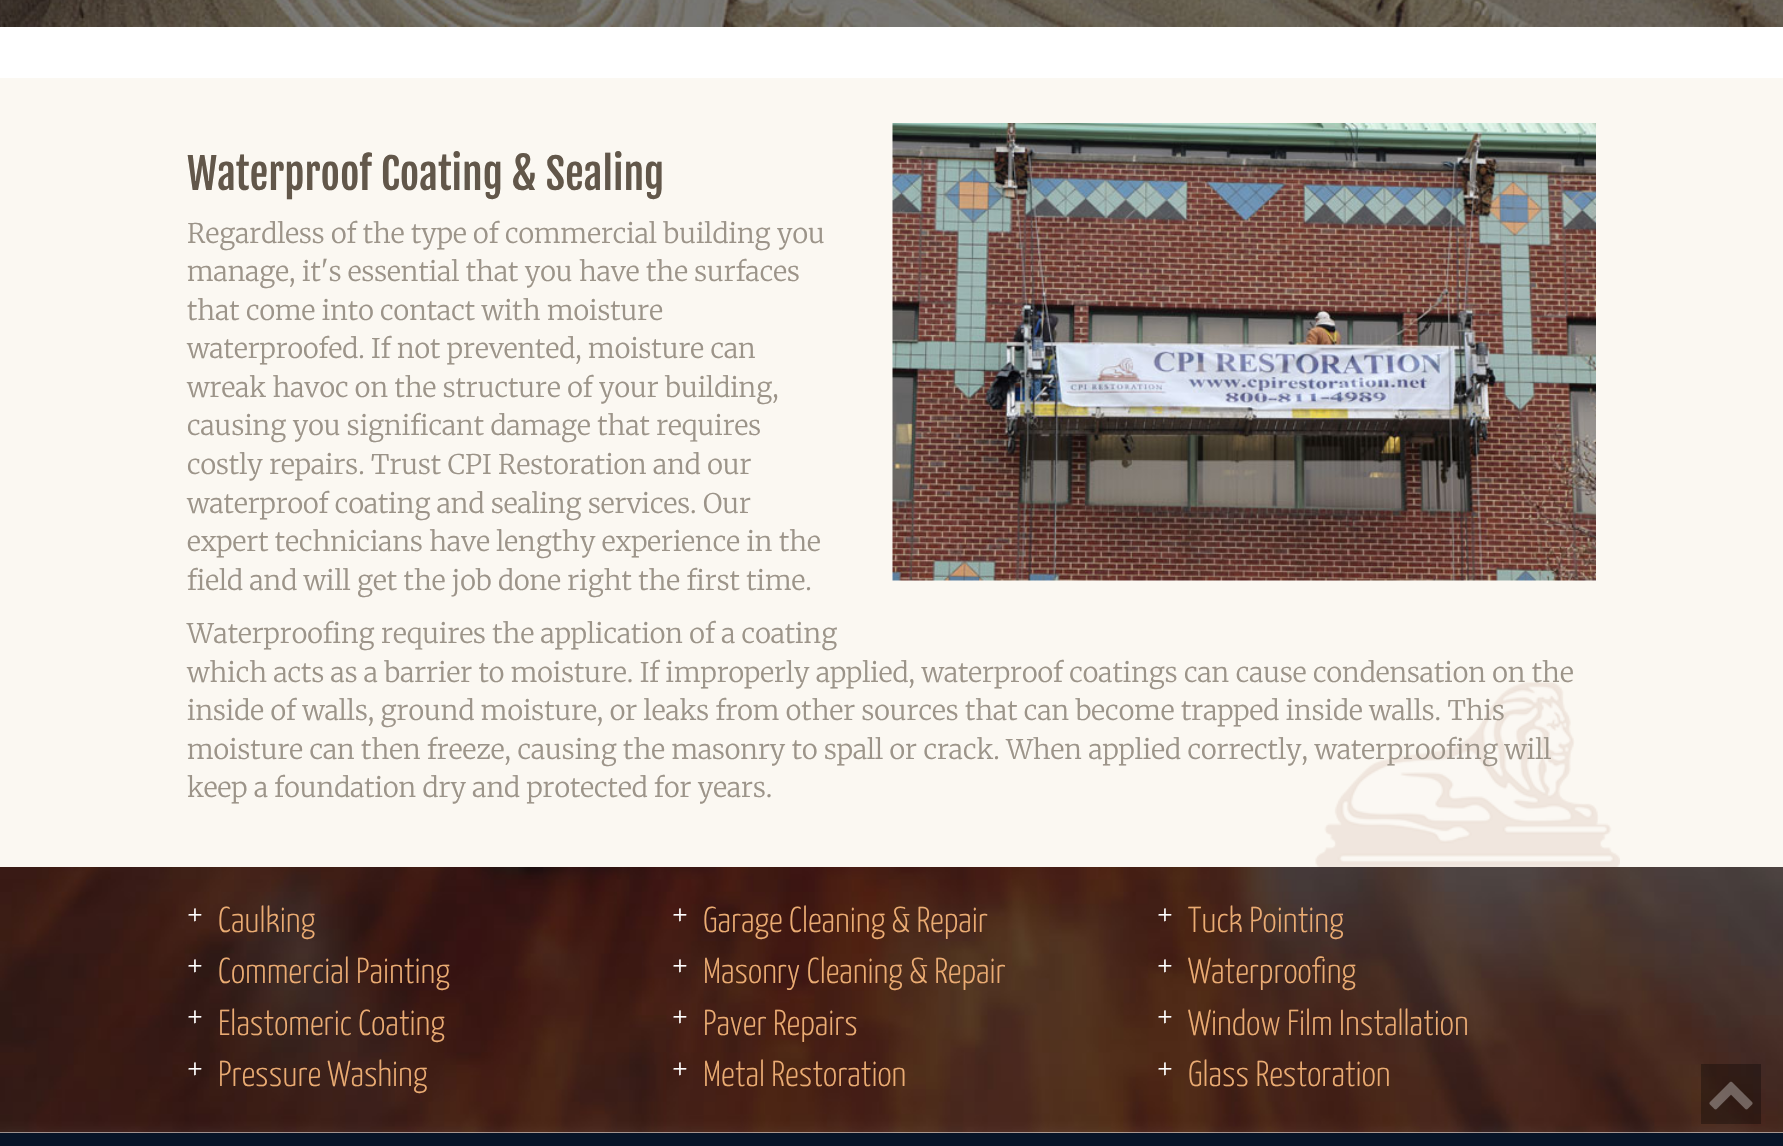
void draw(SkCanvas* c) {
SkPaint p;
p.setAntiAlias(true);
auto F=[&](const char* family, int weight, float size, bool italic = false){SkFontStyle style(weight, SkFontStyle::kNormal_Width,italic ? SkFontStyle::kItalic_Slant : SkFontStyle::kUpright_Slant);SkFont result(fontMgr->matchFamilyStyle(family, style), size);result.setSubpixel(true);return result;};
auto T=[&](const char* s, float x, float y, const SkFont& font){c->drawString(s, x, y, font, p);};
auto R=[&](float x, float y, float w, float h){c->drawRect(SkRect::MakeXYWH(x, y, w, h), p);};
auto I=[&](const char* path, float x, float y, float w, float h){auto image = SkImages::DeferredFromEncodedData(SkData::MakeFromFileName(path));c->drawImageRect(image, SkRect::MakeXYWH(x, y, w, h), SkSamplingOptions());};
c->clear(0xffffffff);
I("1.png",0,0,1783,27);
p.setColor(0xfffbf8f2);
R(0,78,1783,789);
I("2.png",1315,682,305,185);
I("3.png",892,123,704,458);
auto f1 = F("Fjalla One",400,42);
p.setColor(0xff62574a);
T("Waterproof Coating & Sealing",187,190,f1);
auto f2 = F("Merriweather",300,27);
p.setColor(0xff9c9489);
T("Regardless of the type of commercial building you",187,243,f2);
T("manage, it's essential that you have the surfaces",187,281,f2);
T("that come into contact with moisture",187,320,f2);
T("waterproofed. If not prevented, moisture can",187,358,f2);
T("wreak havoc on the structure of your building,",187,397,f2);
T("causing you significant damage that requires",187,435,f2);
T("costly repairs. Trust CPI Restoration and our",187,474,f2);
T("waterproof coating and sealing services. Our",187,513,f2);
T("expert technicians have lengthy experience in the",187,551,f2);
T("field and will get the job done right the first time.",187,590,f2);
T("Waterproofing requires the application of a coating",187,643,f2);
T("which acts as a barrier to moisture. If improperly applied, waterproof coatings can cause condensation on the",187,682,f2);
T("inside of walls, ground moisture, or leaks from other sources that can become trapped inside walls. This",187,720,f2);
T("moisture can then freeze, causing the masonry to spall or crack. When applied correctly, waterproofing will",187,759,f2);
T("keep a foundation dry and protected for years.",187,797,f2);
I("4.png",0,867,1783,266);
auto f3 = F("Yanone Kaffeesatz",300,36);
p.setColor(0xffffffff);
T("+",187,925,f3);
p.setColor(0xffebac73);
T("Caulking",218,932,f3);
p.setColor(0xffffffff);
T("+",187,976,f3);
p.setColor(0xffebac73);
T("Commercial Painting",218,983,f3);
p.setColor(0xffffffff);
T("+",187,1027,f3);
p.setColor(0xffebac73);
T("Elastomeric Coating",218,1035,f3);
p.setColor(0xffffffff);
T("+",187,1079,f3);
p.setColor(0xffebac73);
T("Pressure Washing",218,1086,f3);
p.setColor(0xffffffff);
T("+",672,925,f3);
p.setColor(0xffebac73);
T("Garage Cleaning & Repair",703,932,f3);
p.setColor(0xffffffff);
T("+",672,976,f3);
p.setColor(0xffebac73);
T("Masonry Cleaning & Repair",703,983,f3);
p.setColor(0xffffffff);
T("+",672,1027,f3);
p.setColor(0xffebac73);
T("Paver Repairs",703,1035,f3);
p.setColor(0xffffffff);
T("+",672,1079,f3);
p.setColor(0xffebac73);
T("Metal Restoration",703,1086,f3);
p.setColor(0xffffffff);
T("+",1157,925,f3);
p.setColor(0xffebac73);
T("Tuck Pointing",1188,932,f3);
p.setColor(0xffffffff);
T("+",1157,976,f3);
p.setColor(0xffebac73);
T("Waterproofing",1188,983,f3);
p.setColor(0xffffffff);
T("+",1157,1027,f3);
p.setColor(0xffebac73);
T("Window Film Installation",1188,1035,f3);
p.setColor(0xffffffff);
T("+",1157,1079,f3);
p.setColor(0xffebac73);
T("Glass Restoration",1188,1086,f3);
p.setColor(0x52000000);
R(1701,1064,60,60);
I("5.png",1709,1081,44,29);
p.setColor(0xff071427);
R(0,1133,1783,13);
}
